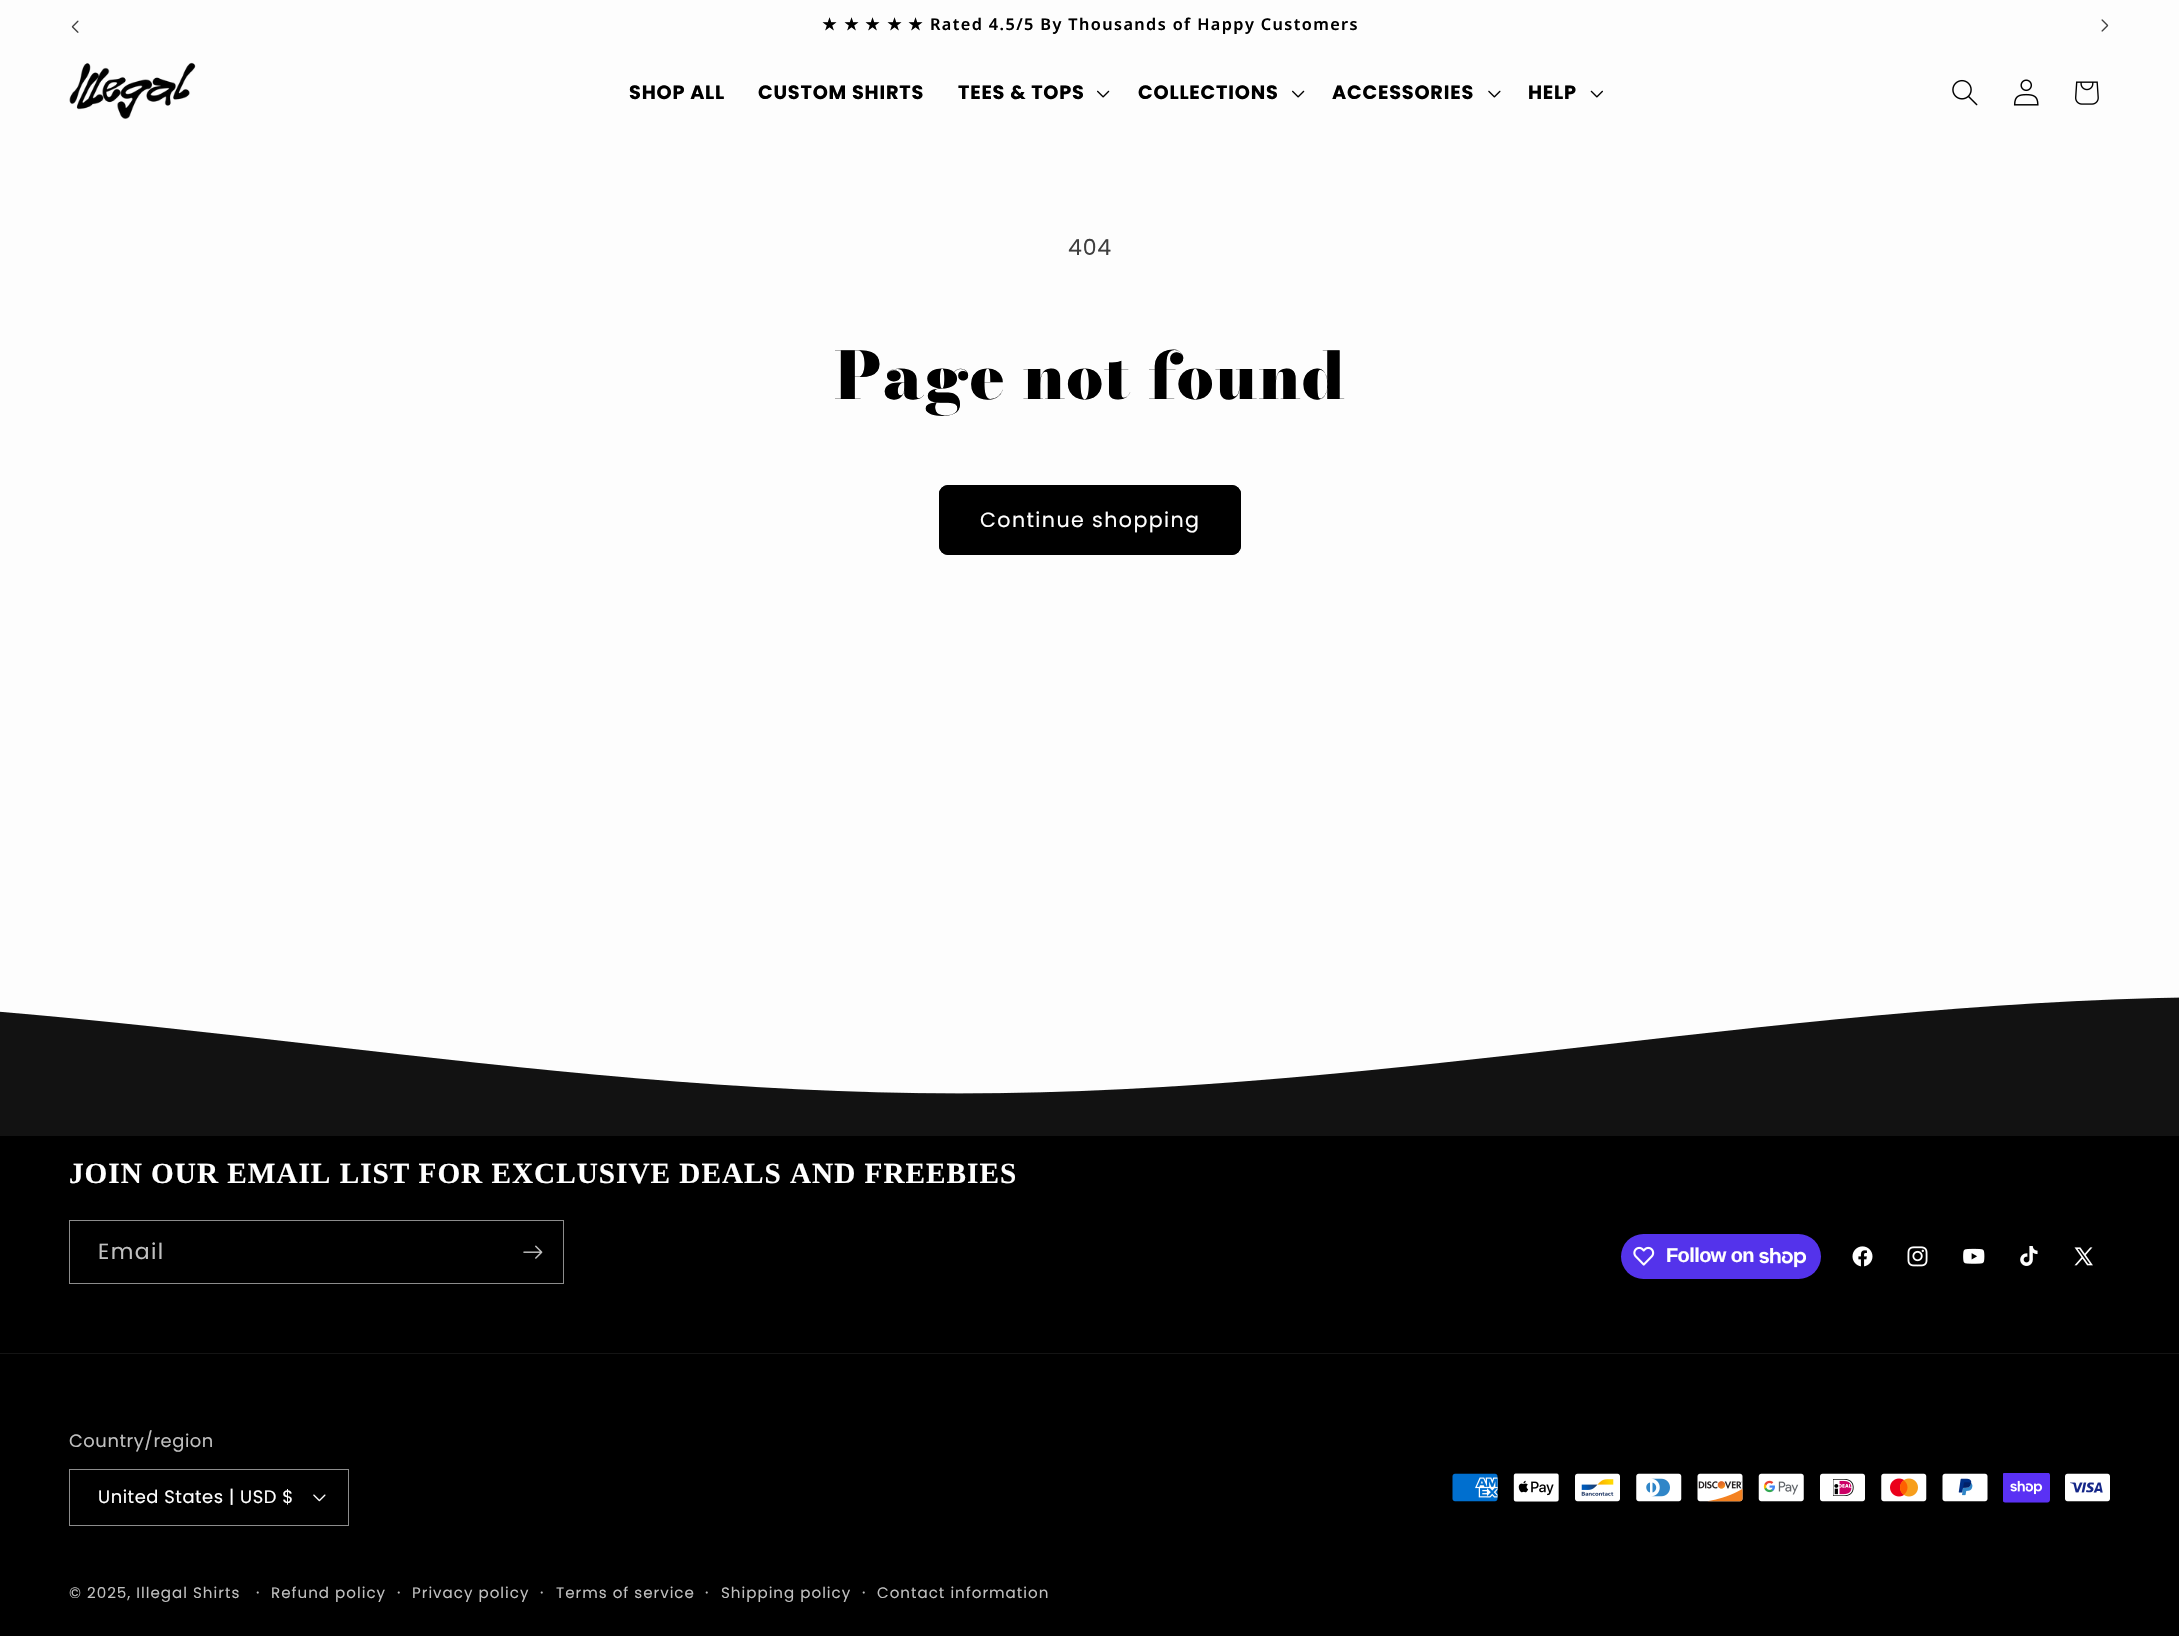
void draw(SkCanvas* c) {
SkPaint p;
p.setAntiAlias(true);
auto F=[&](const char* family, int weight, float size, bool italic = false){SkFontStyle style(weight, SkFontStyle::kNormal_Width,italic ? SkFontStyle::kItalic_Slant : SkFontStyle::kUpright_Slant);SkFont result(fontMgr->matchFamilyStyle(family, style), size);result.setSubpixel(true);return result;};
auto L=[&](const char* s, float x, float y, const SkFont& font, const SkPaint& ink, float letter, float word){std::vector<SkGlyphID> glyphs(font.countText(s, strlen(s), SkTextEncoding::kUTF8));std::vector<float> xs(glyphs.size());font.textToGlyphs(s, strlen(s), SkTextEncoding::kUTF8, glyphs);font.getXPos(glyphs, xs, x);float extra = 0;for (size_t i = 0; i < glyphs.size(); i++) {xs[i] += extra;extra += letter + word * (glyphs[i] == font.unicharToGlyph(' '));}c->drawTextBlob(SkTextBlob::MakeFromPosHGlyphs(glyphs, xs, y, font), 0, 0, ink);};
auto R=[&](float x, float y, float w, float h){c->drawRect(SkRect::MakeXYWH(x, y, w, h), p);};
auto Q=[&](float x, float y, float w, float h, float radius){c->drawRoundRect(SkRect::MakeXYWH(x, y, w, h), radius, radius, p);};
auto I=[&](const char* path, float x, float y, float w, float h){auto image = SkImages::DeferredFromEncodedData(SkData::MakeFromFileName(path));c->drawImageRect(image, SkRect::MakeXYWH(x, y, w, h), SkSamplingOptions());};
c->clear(0xfffdfdfd);
I("1.png",71,20,8,13);
auto f1 = F("DejaVu Sans",700,16.25);
p.setColor(0xff000000);
L("★",822,30,f1,p,1.4,0);
L("★",844,30,f1,p,1.4,0);
L("★",865,30,f1,p,1.4,0);
L("★",887,30,f1,p,1.4,0);
L("★",908,30,f1,p,1.4,0);
auto f2 = F("Noto Sans",600,16.25);
L("Rated 4.5/5 By Thousands of Happy Customers",930,30,f2,p,1.4,0);
I("2.png",2101,19,8,13);
I("3.png",69,62,127,57);
auto f3 = F("Poppins",700,19.25);
L("SHOP ALL",629,99,f3,p,.8,0);
L("CUSTOM SHIRTS",758,99,f3,p,.8,0);
L("TEES & TOPS",958,99,f3,p,.8,0);
I("4.png",1097,90,13,8);
L("COLLECTIONS",1138,99,f3,p,.8,0);
I("4.png",1292,90,13,8);
L("ACCESSORIES",1332,99,f3,p,.8,0);
I("5.png",1488,90,13,8);
L("HELP",1528,99,f3,p,.8,0);
I("6.png",1590,90,13,8);
I("7.png",1952,79,26,27);
I("8.png",2013,79,26,27);
I("9.png",2075,81,24,24);
auto f4 = F("Poppins",400,22);
p.setColor(0xff3f3f3f);
L("404",1068,255,f4,p,.8,0);
auto f5 = F("Bodoni Moda",900,65);
p.setColor(0xff000000);
L("Page not found",834,399,f5,p,.98,0);
Q(939,485,302,70,9);
p.setStroke(true);
p.setStrokeWidth(4);
c->drawRoundRect(SkRect::MakeXYWH(941,487,298,66),7,7,p);
auto f6 = F("Poppins",400,20.6);
p.setStroke(false);
p.setColor(0xffffffff);
L("Continue shopping",980,527,f6,p,1.4,0);
I("10.png",0,997,2179,139);
p.setColor(0xff000000);
R(0,1136,2179,500);
auto f7 = F("Liberation Serif",700,29.25);
p.setColor(0xffffffff);
L("JOIN OUR EMAIL LIST FOR EXCLUSIVE DEALS AND FREEBIES",69,1183,f7,p,.98,0);
p.setStroke(true);
p.setStrokeWidth(1);
p.setColor(0xff8c8c8c);
c->drawRect(SkRect::MakeXYWH(69.5,1220.5,494,63),p);
p.setStroke(false);
p.setColor(0xffbfbfbf);
L("Email",98,1259,f4,p,1.4,0);
I("11.png",523,1245,20,14);
p.setColor(0xff5433eb);
Q(1621,1234,200,45,22.5);
I("12.png",1633,1246,22,20);
auto f8 = F("Liberation Sans",700,20);
p.setColor(0xffffffff);
L("Follow on",1666,1262,f8,p,-.6,0);
I("13.png",1759,1248,47,20);
I("14.png",1852,1246,21,21);
I("15.png",1907,1246,21,21);
I("16.png",1963,1248,22,16);
I("17.png",2020,1246,18,20);
I("18.png",2074,1247,19,19);
p.setColor(0xff141414);
R(0,1353,2179,1);
auto f9 = F("Poppins",400,17.9);
p.setColor(0xffbfbfbf);
L("Country/region",69,1447,f9,p,.55,0);
I("19.png",313,1494,13,8);
p.setStroke(true);
p.setColor(0xff8c8c8c);
c->drawRect(SkRect::MakeXYWH(69.5,1469.5,279,56),p);
p.setStroke(false);
p.setColor(0xffffffff);
L("United States | USD $",98,1503,f9,p,.55,0);
I("20.png",1452,1473,46,29);
I("21.png",1513,1473,46,29);
I("22.png",1575,1473,45,29);
I("23.png",1636,1473,46,29);
I("24.png",1697,1473,46,29);
I("25.png",1758,1473,46,29);
I("26.png",1820,1473,45,29);
I("27.png",1881,1473,46,29);
I("28.png",1942,1473,46,29);
I("29.png",2003,1473,47,30);
I("30.png",2065,1473,45,29);
auto f10 = F("Poppins",400,15.1);
p.setColor(0xffbfbfbf);
L("© 2025, Illegal Shirts",69,1598,f10,p,1,0);
auto f11 = F("Poppins",400,16);
L("·",256,1598,f11,p,1,0);
L("Refund policy",271,1598,f10,p,1,0);
L("·",397,1598,f11,p,1,0);
L("Privacy policy",412,1598,f10,p,1,0);
L("·",540,1598,f11,p,1,0);
L("Terms of service",556,1598,f10,p,1,0);
L("·",705,1598,f11,p,1,0);
L("Shipping policy",721,1598,f10,p,1,0);
L("·",862,1598,f11,p,1,0);
L("Contact information",877,1598,f10,p,1,0);
}
